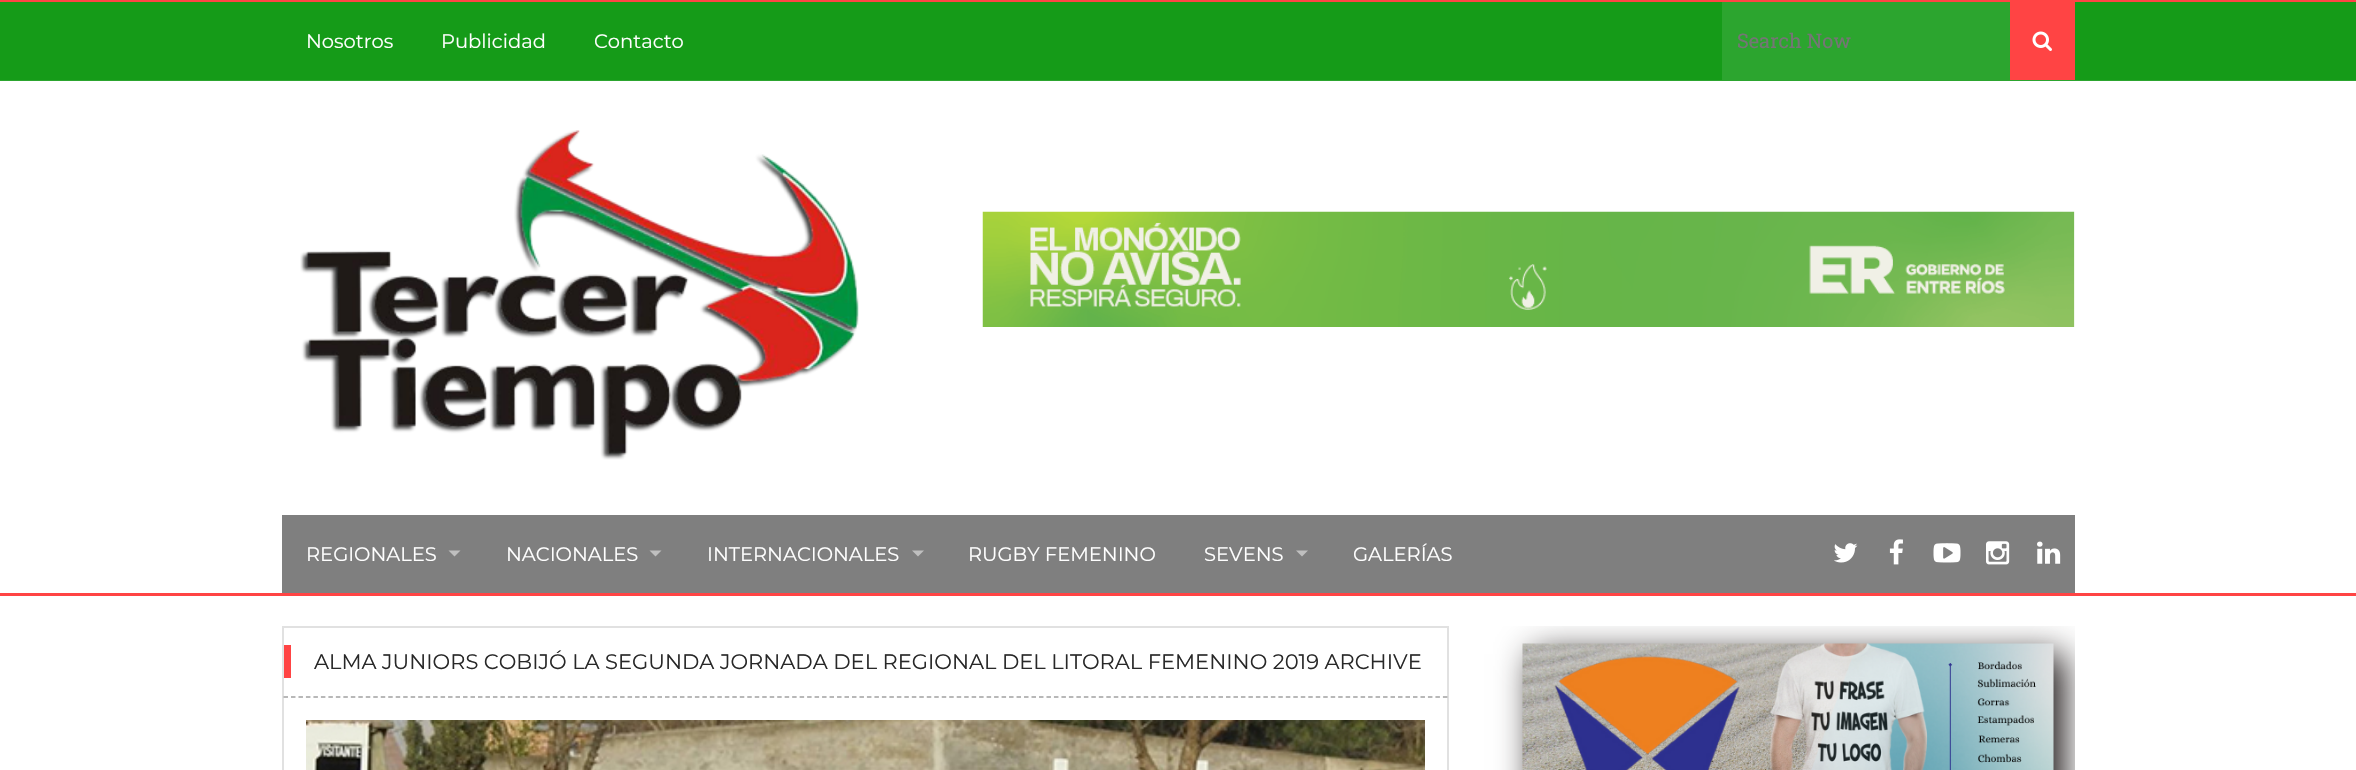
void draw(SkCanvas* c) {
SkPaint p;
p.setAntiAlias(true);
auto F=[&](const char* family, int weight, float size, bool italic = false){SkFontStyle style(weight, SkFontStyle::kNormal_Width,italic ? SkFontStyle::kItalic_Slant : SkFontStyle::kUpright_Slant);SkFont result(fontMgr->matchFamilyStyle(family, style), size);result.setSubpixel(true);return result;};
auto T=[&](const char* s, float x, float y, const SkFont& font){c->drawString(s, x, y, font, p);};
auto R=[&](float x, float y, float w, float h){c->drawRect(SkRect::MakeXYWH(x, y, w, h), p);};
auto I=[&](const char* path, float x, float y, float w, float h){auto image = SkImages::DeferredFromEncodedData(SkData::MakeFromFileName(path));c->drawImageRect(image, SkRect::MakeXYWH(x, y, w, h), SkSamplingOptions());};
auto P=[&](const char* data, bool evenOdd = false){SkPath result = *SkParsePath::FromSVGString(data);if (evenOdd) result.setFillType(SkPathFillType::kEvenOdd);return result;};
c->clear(0xffffffff);
p.setColor(0xffff4444);
R(0,0,2356,2);
R(0,593,2356,3);
p.setColor(0xff159b18);
R(0,2,2356,78);
p.setColor(0xff2ca52f);
R(0,80,2356,1);
auto f1 = F("Montserrat",100,19.5);
p.setColor(0xffffffff);
T("Nosotros",306,48,f1);
T("Publicidad",441,48,f1);
T("Contacto",594,48,f1);
p.setColor(0xff2ca52f);
R(1722,2,288,78);
auto f2 = F("Roboto Slab",400,20);
p.setColor(0xff757575);
T("Search Now",1737,48,f2);
p.setColor(0xffff4444);
R(2010,2,65,78);
I("1.png",2032,31,20,20);
I("2.png",300,130,559,330);
I("3.png",982,211,1093,116);
p.setColor(0xff7f7f7f);
R(282,515,1793,78);
p.setColor(0xffffffff);
T("REGIONALES",306,561,f1);
p.setColor(0xffbfbfbf);
c->drawPath(P("M448.5 550.5h12l-6 6z"),p);
p.setColor(0xffffffff);
T("NACIONALES",506,561,f1);
p.setColor(0xffbfbfbf);
c->drawPath(P("M649.5 550.5h12l-6 6z"),p);
p.setColor(0xffffffff);
T("INTERNACIONALES",707,561,f1);
p.setColor(0xffbfbfbf);
c->drawPath(P("M912 550.5h12l-6 6z"),p);
p.setColor(0xffffffff);
T("RUGBY FEMENINO",968,561,f1);
T("SEVENS",1204,561,f1);
p.setColor(0xffbfbfbf);
c->drawPath(P("M1296 550.5h12l-6 6z"),p);
p.setColor(0xffffffff);
T("GALERÍAS",1353,561,f1);
I("4.png",1834,543,24,20);
I("5.png",1889,539,14,26);
I("6.png",1933,543,28,20);
I("7.png",1986,541,24,24);
I("8.png",2037,541,24,23);
p.setStroke(true);
p.setStrokeWidth(2);
p.setColor(0xffe1e1e1);
c->drawRect(SkRect::MakeXYWH(283,627,1165,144),p);
p.setStrokeWidth(1.5);
p.setColor(0xffa1a1a1);
p.setPathEffect(SkDashPathEffect::Make({{4.5f,2.98f}}, 0));
c->drawPath(P("M283.5 697h1164"),p);
p.setPathEffect(nullptr);
p.setStroke(false);
p.setColor(0xffff4444);
R(284,645,7,33);
auto f3 = F("Montserrat",100,21);
p.setColor(0xff282828);
T("ALMA JUNIORS COBIJÓ LA SEGUNDA JORNADA DEL REGIONAL DEL LITORAL FEMENINO 2019 ARCHIVE",314,669,f3);
I("9.png",306,720,1119,50);
c->save();
c->clipRect(SkRect::MakeXYWH(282,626,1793,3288));
p.setColor(0xff1d1717);
p.setMaskFilter(SkMaskFilter::MakeBlur(kNormal_SkBlurStyle, 16.5));
c->drawRect(SkRect::MakeXYWH(1533,654,531,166),p);
p.setMaskFilter(nullptr);
c->restore();
I("10.png",1522,643,532,127);
}
